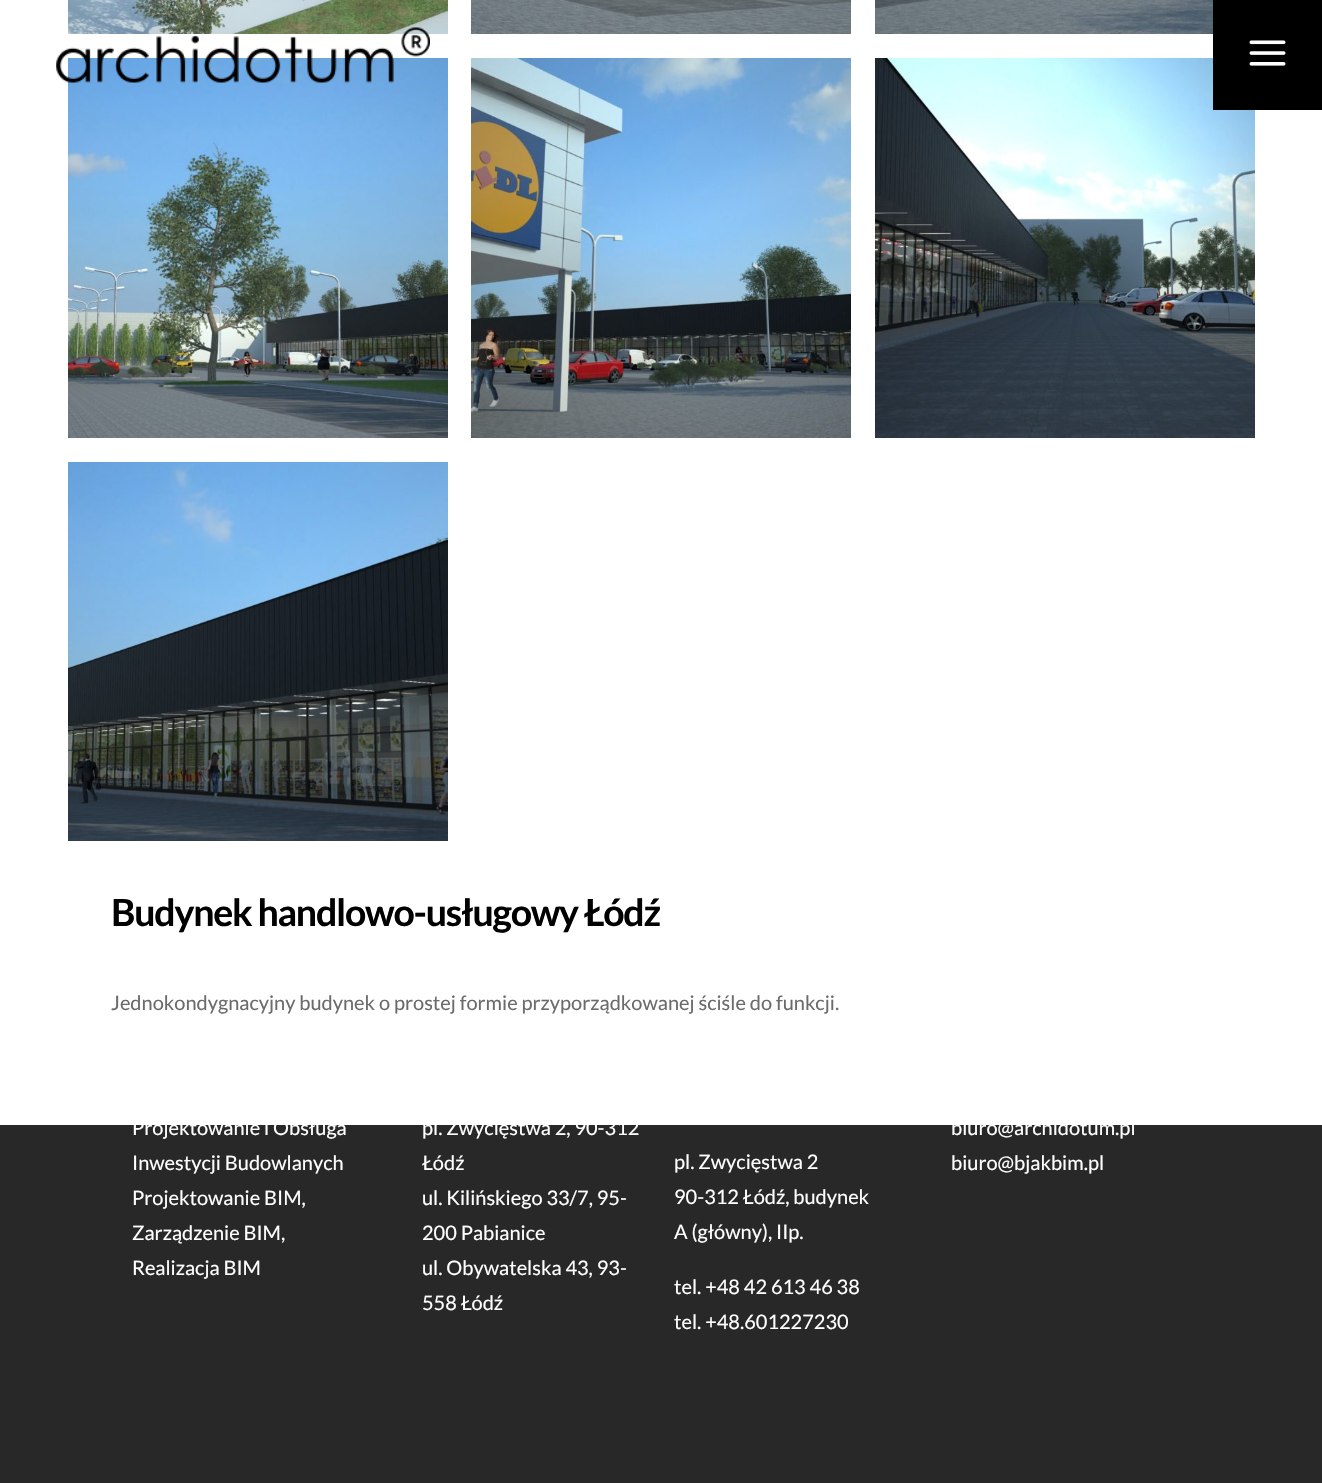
void draw(SkCanvas* c) {
SkPaint p;
p.setAntiAlias(true);
auto F=[&](const char* family, int weight, float size, bool italic = false){SkFontStyle style(weight, SkFontStyle::kNormal_Width,italic ? SkFontStyle::kItalic_Slant : SkFontStyle::kUpright_Slant);SkFont result(fontMgr->matchFamilyStyle(family, style), size);result.setSubpixel(true);return result;};
auto T=[&](const char* s, float x, float y, const SkFont& font){c->drawString(s, x, y, font, p);};
auto L=[&](const char* s, float x, float y, const SkFont& font, const SkPaint& ink, float letter, float word){std::vector<SkGlyphID> glyphs(font.countText(s, strlen(s), SkTextEncoding::kUTF8));std::vector<float> xs(glyphs.size());font.textToGlyphs(s, strlen(s), SkTextEncoding::kUTF8, glyphs);font.getXPos(glyphs, xs, x);float extra = 0;for (size_t i = 0; i < glyphs.size(); i++) {xs[i] += extra;extra += letter + word * (glyphs[i] == font.unicharToGlyph(' '));}c->drawTextBlob(SkTextBlob::MakeFromPosHGlyphs(glyphs, xs, y, font), 0, 0, ink);};
auto R=[&](float x, float y, float w, float h){c->drawRect(SkRect::MakeXYWH(x, y, w, h), p);};
auto I=[&](const char* path, float x, float y, float w, float h){auto image = SkImages::DeferredFromEncodedData(SkData::MakeFromFileName(path));c->drawImageRect(image, SkRect::MakeXYWH(x, y, w, h), SkSamplingOptions());};
c->clear(0xff282828);
p.setColor(0xffffffff);
R(0,0,1322,1125);
I("3.png",68,0,380,34);
I("6.png",68,58,380,380);
I("1.png",56,27,374,56);
I("8.png",875,58,380,380);
p.setColor(0xff000000);
R(1213,0,109,110);
I("2.png",1249,40,37,26);
I("4.png",471,0,380,34);
I("5.png",875,0,338,34);
I("7.png",471,58,380,380);
I("9.png",68,462,380,379);
auto f1 = F("Lato",700,37.5);
L("Budynek handlowo-usługowy Łódź",111,926,f1,p,-1.25,0);
auto f2 = F("Lato",400,20);
p.setColor(0xff6b6b6b);
T("Jednokondygnacyjny budynek o prostej formie przyporządkowanej ściśle do funkcji.",111,1010,f2);
p.setColor(0xffffffff);
T("Projektowanie i Obsługa",132,1135,f2);
T("Inwestycji Budowlanych",132,1170,f2);
T("Projektowanie BIM,",132,1205,f2);
T("Zarządzenie BIM,",132,1240,f2);
T("Realizacja BIM",132,1275,f2);
T("pl. Zwycięstwa 2, 90-312",422,1135,f2);
T("Łódź",422,1170,f2);
T("ul. Kilińskiego 33/7, 95-",422,1205,f2);
T("200 Pabianice",422,1240,f2);
T("ul. Obywatelska 43, 93-",422,1275,f2);
T("558 Łódź",422,1310,f2);
T("biuro@archidotum.pl",951,1135,f2);
T("biuro@bjakbim.pl",951,1170,f2);
T("pl. Zwycięstwa 2",674,1169,f2);
T("90-312 Łódź, budynek",674,1204,f2);
T("A (główny), IIp.",674,1239,f2);
T("tel. +48 42 613 46 38",674,1294,f2);
T("tel. +48.601227230",674,1329,f2);
}
